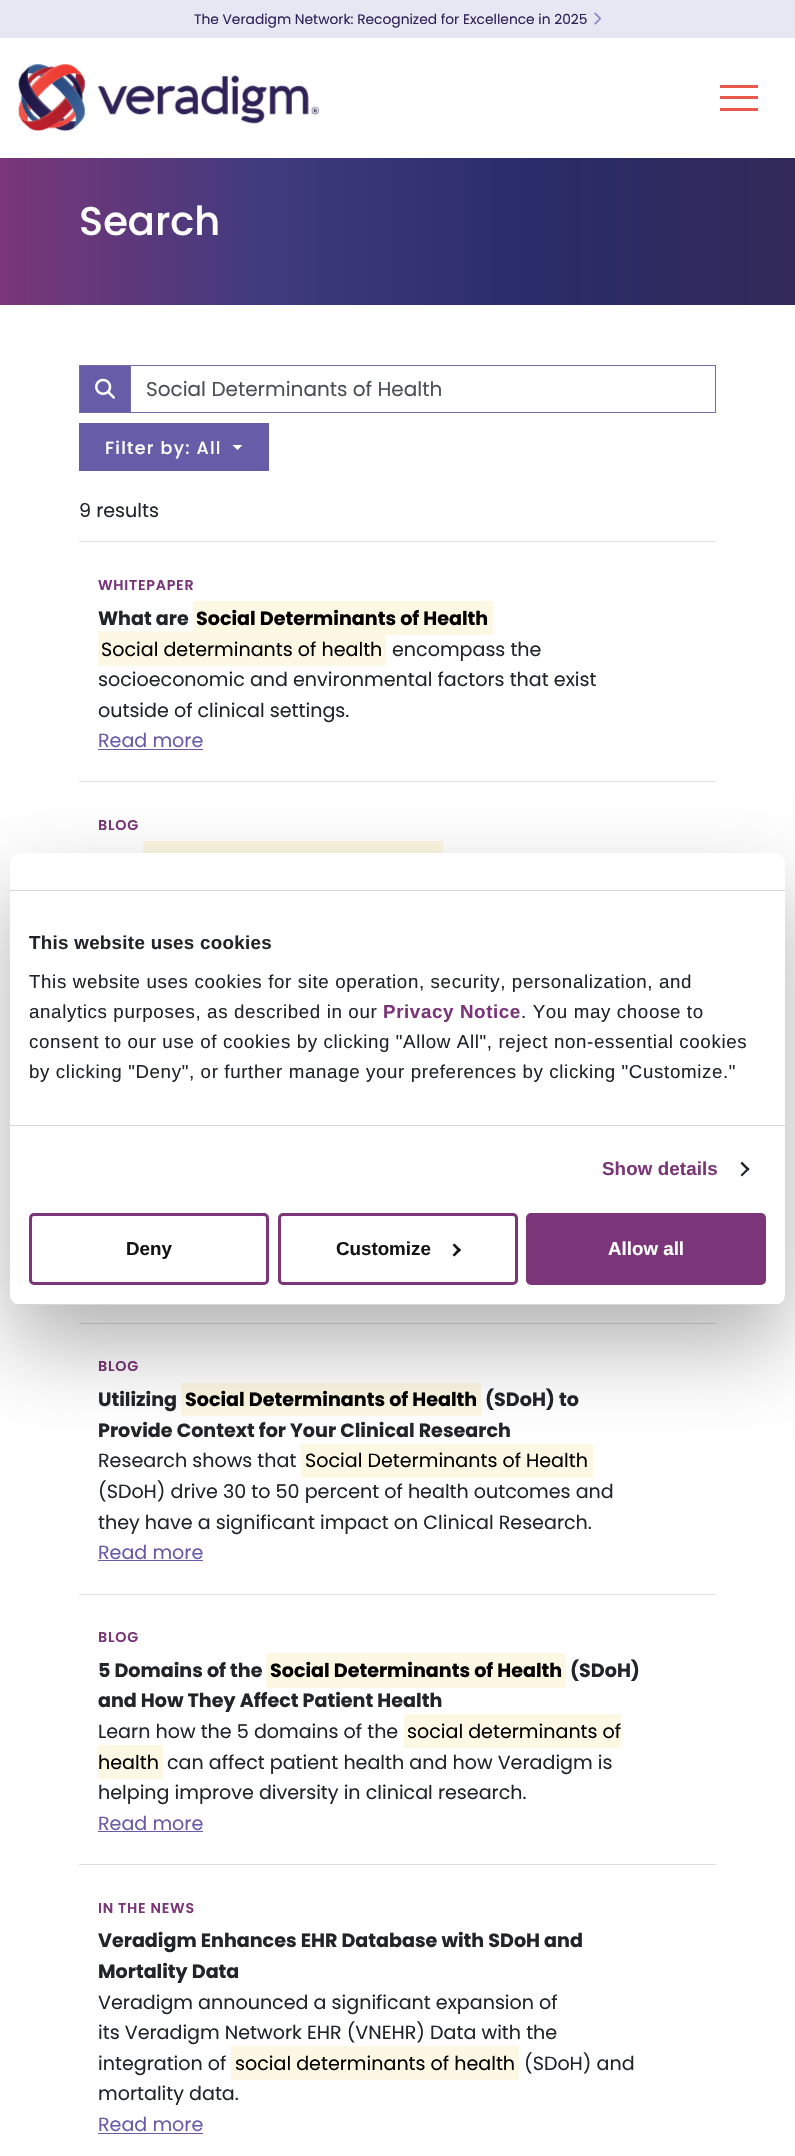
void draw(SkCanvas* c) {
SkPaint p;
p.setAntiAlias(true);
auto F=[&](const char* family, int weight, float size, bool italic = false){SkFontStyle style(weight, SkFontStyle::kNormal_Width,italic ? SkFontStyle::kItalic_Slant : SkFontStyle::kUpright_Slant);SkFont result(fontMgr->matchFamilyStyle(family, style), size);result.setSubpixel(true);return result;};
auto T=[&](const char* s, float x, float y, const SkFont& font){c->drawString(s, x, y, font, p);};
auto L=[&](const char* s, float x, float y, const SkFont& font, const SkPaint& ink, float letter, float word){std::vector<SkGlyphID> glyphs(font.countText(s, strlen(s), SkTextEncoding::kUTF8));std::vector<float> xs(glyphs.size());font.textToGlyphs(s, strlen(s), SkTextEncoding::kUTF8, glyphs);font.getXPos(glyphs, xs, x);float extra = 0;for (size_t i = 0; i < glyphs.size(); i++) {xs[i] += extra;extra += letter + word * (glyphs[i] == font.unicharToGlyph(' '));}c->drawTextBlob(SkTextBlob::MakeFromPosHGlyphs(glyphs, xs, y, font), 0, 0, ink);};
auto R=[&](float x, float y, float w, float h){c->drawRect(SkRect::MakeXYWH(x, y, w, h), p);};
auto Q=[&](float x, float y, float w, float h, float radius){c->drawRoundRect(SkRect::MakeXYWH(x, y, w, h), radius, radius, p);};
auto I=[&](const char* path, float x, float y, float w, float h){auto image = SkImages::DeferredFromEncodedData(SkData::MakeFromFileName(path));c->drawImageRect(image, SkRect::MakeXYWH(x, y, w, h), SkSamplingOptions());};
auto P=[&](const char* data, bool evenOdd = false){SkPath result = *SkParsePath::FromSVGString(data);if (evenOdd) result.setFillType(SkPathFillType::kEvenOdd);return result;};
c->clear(0xffffffff);
p.setColor(0xffe7e7f3);
R(0,0,795,38);
auto f1 = F("Poppins",400,13.8);
p.setColor(0xff2f2257);
T("The Veradigm Network: Recognized for Excellence in 2025",194,24,f1);
I("1.png",594,12,8,13);
I("2.png",18,64,301,68);
p.setColor(0xffe8594c);
R(720,85,38,3);
R(720,96,38,3);
R(720,108,38,3);
{
const SkColor colors[] = {0xff7a3678,0xff403b7e,0xff2a2d69,0xff322959};
const float stops[] = {0,.33,.67,1};
const SkPoint ends[] = {{0,231}, {795,231}};
p.setShader(SkGradientShader::MakeLinear(ends, colors, stops, 4, SkTileMode::kClamp));
p.setAlpha(255);
}
R(0,158,795,147);
auto f2 = F("Poppins",500,40);
p.setShader(nullptr);
p.setColor(0xffffffff);
T("Search",79,235,f2);
p.setColor(0xff675ca8);
c->drawRect(SkRect::MakeXYWH(79.5,365.5,51,47),p);
p.setStroke(true);
p.setStrokeWidth(1);
p.setColor(0xff766baa);
c->drawRect(SkRect::MakeXYWH(79.5,365.5,51,47),p);
I("3.png",95,378,20,21);
c->drawRect(SkRect::MakeXYWH(130.5,365.5,585,47),p);
auto f3 = F("Poppins",400,20);
p.setStroke(false);
p.setColor(0xff495057);
T("Social Determinants of Health",146,396,f3);
p.setColor(0xff675ca8);
R(79,423,190,48);
auto f4 = F("Poppins",500,17.5);
p.setColor(0xffffffff);
L("Filter by: All",105,454,f4,p,1.25,0);
c->drawPath(P("M232.5 445h10l-5 5z"),p);
p.setColor(0xffdfdfdf);
R(79,541,637,1);
auto f5 = F("Poppins",400,19.1);
p.setColor(0xff212529);
T("9 results",79,517,f5);
p.setColor(0xffdfdfdf);
R(79,781,637,1);
auto f6 = F("Poppins",600,14.25);
p.setColor(0xff7a3678);
L("WHITEPAPER",98,590,f6,p,.75,0);
auto f7 = F("Poppins",700,19.1);
p.setColor(0xff212529);
T("What are",98,625,f7);
p.setColor(0xfffcf8e3);
R(193,601,300,34);
p.setColor(0xff000000);
T("Social Determinants of Health",196,625,f7);
p.setColor(0xfffcf8e3);
R(98,631,288,35);
p.setColor(0xff000000);
T("Social determinants of health",101,656,f5);
p.setColor(0xff212529);
T("encompass the",392,656,f5);
T("socioeconomic and environmental factors that exist",98,686,f5);
T("outside of clinical settings.",98,717,f5);
p.setColor(0xff675ca8);
T("Read more",98,747,f5);
R(98,749,105,1);
p.setColor(0xff7a3678);
L("BLOG",98,830,f6,p,.75,0);
p.setColor(0xfffcf8e3);
R(143,841,300,12);
p.setColor(0xffdfdfdf);
R(79,1323,637,1);
R(79,1594,637,1);
p.setColor(0xff7a3678);
L("BLOG",98,1371,f6,p,.75,0);
p.setColor(0xff212529);
T("Utilizing",98,1406,f7);
p.setColor(0xfffcf8e3);
R(181,1383,300,33);
p.setColor(0xff000000);
T("Social Determinants of Health",185,1406,f7);
p.setColor(0xff212529);
T("(SDoH) to",485,1406,f7);
T("Provide Context for Your Clinical Research",98,1437,f7);
T("Research shows that",98,1467,f5);
p.setColor(0xfffcf8e3);
R(301,1444,292,34);
p.setColor(0xff000000);
T("Social Determinants of Health",305,1467,f5);
p.setColor(0xff212529);
T("(SDoH) drive 30 to 50 percent of health outcomes and",98,1498,f5);
T("they have a significant impact on Clinical Research.",98,1529,f5);
p.setColor(0xff675ca8);
T("Read more",98,1559,f5);
R(98,1560,105,1);
p.setColor(0xffdfdfdf);
R(79,1864,637,1);
p.setColor(0xff7a3678);
L("BLOG",98,1642,f6,p,.75,0);
p.setColor(0xff212529);
T("5 Domains of the",98,1677,f7);
p.setColor(0xfffcf8e3);
R(266,1653,300,35);
p.setColor(0xff000000);
T("Social Determinants of Health",270,1677,f7);
p.setColor(0xff212529);
T("(SDoH)",570,1677,f7);
T("and How They Affect Patient Health",98,1707,f7);
T("Learn how the 5 domains of the",98,1738,f5);
p.setColor(0xfffcf8e3);
R(404,1714,217,34);
p.setColor(0xff000000);
T("social determinants of",407,1738,f5);
p.setColor(0xfffcf8e3);
R(98,1745,65,34);
p.setColor(0xff000000);
T("health",98,1769,f5);
p.setColor(0xff212529);
T("can affect patient health and how Veradigm is",167,1769,f5);
T("helping improve diversity in clinical research.",98,1799,f5);
p.setColor(0xff675ca8);
T("Read more",98,1830,f5);
R(98,1831,105,1);
p.setColor(0xff7a3678);
L("IN THE NEWS",98,1913,f6,p,.75,0);
p.setColor(0xff212529);
T("Veradigm Enhances EHR Database with SDoH and",98,1947,f7);
T("Mortality Data",98,1978,f7);
T("Veradigm announced a significant expansion of",98,2009,f5);
T("its Veradigm Network EHR (VNEHR) Data with the",98,2039,f5);
T("integration of",98,2070,f5);
p.setColor(0xfffcf8e3);
R(231,2046,288,34);
p.setColor(0xff000000);
T("social determinants of health",235,2070,f5);
p.setColor(0xff212529);
T("(SDoH) and",524,2070,f5);
T("mortality data.",98,2100,f5);
p.setColor(0xff675ca8);
T("Read more",98,2131,f5);
R(98,2133,105,1);
p.setColor(0x4d000000);
p.setMaskFilter(SkMaskFilter::MakeBlur(kNormal_SkBlurStyle, 42.5));
c->drawRoundRect(SkRect::MakeXYWH(10,893,775,452),10,10,p);
p.setMaskFilter(nullptr);
p.setColor(0xffffffff);
Q(10,853,775,452,10);
p.setColor(0xffd6d6d6);
R(10,890,775,1);
R(10,1125,775,1);
auto f8 = F("Liberation Sans",700,18.75);
p.setColor(0xff212529);
L("This website uses cookies",29,949,f8,p,.3,0);
auto f9 = F("Liberation Sans",400,18.75);
L("This website uses cookies for site operation, security, personalization, and",29,988,f9,p,.62,0);
L("analytics purposes, as described in our",29,1018,f9,p,.62,0);
p.setColor(0xff7a3678);
L("Privacy Notice",383,1018,f8,p,.62,0);
p.setColor(0xff212529);
L(". You may choose to",521,1018,f9,p,.62,0);
L("consent to our use of cookies by clicking \"Allow All\", reject non-essential cookies",29,1048,f9,p,.62,0);
L("by clicking \"Deny\", or further manage your preferences by clicking \"Customize.\"",29,1078,f9,p,.62,0);
p.setColor(0xff7a3678);
L("Show details",602,1175,f8,p,.1,0);
p.setColor(0xff212529);
c->drawPath(P("M742 1161.5l7.5 7.5l-1.5 2l-7.5-7.5z"),p);
c->drawPath(P("M748 1167.5l1.5 1.5l-7.5 7.5l-1.5-1.5z"),p);
c->save();
c->clipPath(P("M20 853h755c5.5 0 10 4.5 10 10v432c0 5.5-4.5 10-10 10h-755c-5.5 0-10-4.5-10-10v-432c0-5.5 4.5-10 10-10z"),true);
p.setColor(0xffd6d6d6);
R(10,1304,775,1);
c->restore();
p.setStroke(true);
p.setStrokeWidth(3);
p.setColor(0xff7a3678);
c->drawRoundRect(SkRect::MakeXYWH(30.5,1214.5,237,69),3.5,3.5,p);
p.setStroke(false);
p.setColor(0xff141414);
T("Deny",126,1255,f8);
p.setStroke(true);
p.setColor(0xff7a3678);
c->drawRoundRect(SkRect::MakeXYWH(279.5,1214.5,237,69),3.5,3.5,p);
p.setStroke(false);
p.setColor(0xff141414);
T("Customize",336,1255,f8);
c->drawPath(P("M454.5 1243.5l6.5 6.5l-2 2l-6.5-7z"),p);
c->drawPath(P("M459 1248l2 2l-6.5 6.5l-2-1.5z"),p);
p.setColor(0xff7a3678);
c->drawRoundRect(SkRect::MakeXYWH(527.5,1214.5,237,69),3.5,3.5,p);
p.setStroke(true);
c->drawRoundRect(SkRect::MakeXYWH(527.5,1214.5,237,69),3.5,3.5,p);
p.setStroke(false);
p.setColor(0xffffffff);
T("Allow all",608,1255,f8);
}
